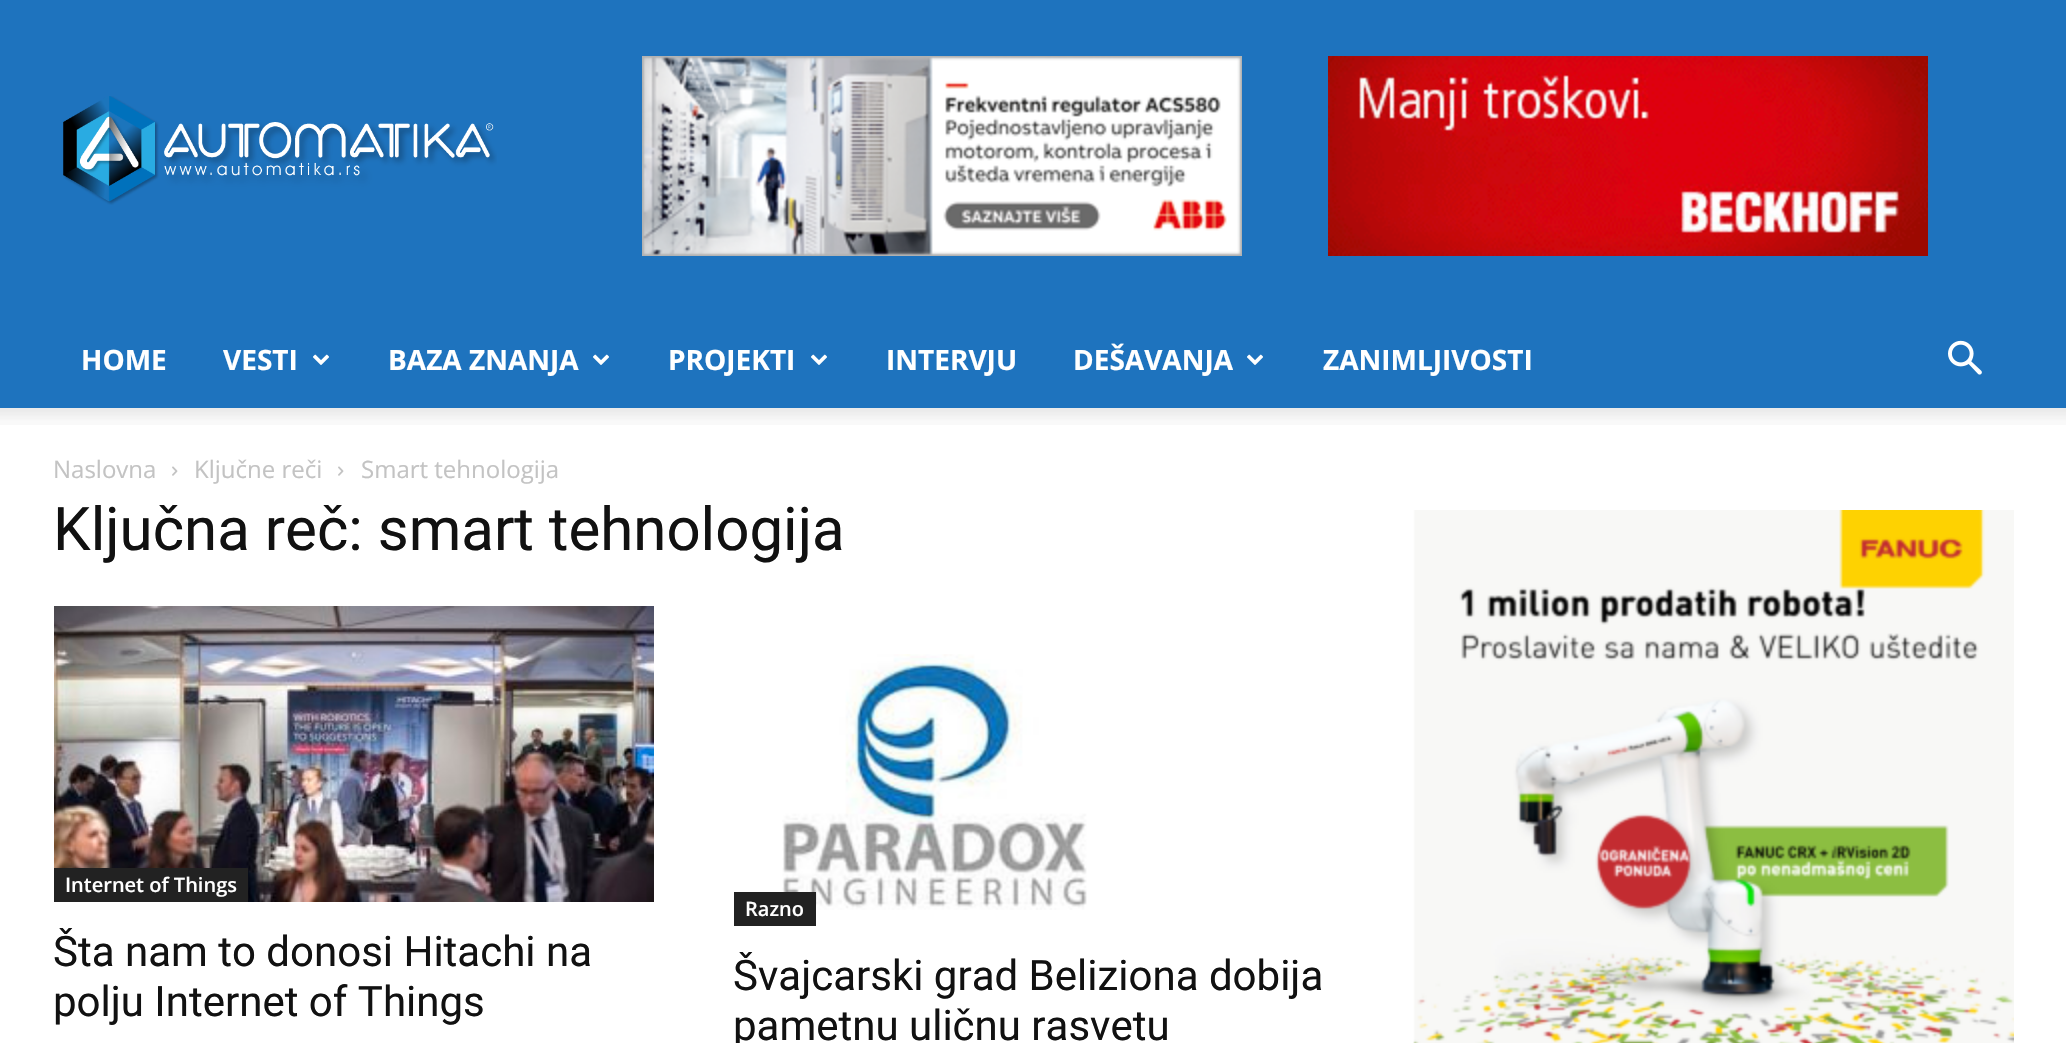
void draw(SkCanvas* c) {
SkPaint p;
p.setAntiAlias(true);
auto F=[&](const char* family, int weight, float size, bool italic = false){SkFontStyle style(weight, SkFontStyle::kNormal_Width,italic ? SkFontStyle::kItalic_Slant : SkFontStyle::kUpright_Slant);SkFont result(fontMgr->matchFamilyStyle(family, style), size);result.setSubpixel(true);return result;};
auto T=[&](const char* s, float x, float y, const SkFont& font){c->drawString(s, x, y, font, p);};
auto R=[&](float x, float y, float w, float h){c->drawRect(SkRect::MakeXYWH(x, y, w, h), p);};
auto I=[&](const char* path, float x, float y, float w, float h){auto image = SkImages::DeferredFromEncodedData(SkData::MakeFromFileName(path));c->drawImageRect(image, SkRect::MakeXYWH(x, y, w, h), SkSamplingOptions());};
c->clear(0xffffffff);
p.setColor(0xff1e73be);
R(0,0,2066,408);
I("1.png",63,96,434,109);
I("2.png",642,56,600,200);
I("3.png",1328,56,600,200);
auto f1 = F("Open Sans",700,28);
p.setColor(0xffffffff);
T("HOME",81,370,f1);
T("VESTI",223,370,f1);
I("4.png",313,354,16,11);
T("BAZA ZNANJA",388,370,f1);
I("4.png",593,354,16,11);
T("PROJEKTI",668,370,f1);
I("4.png",811,354,16,11);
T("INTERVJU",886,370,f1);
T("DEŠAVANJA",1073,370,f1);
I("4.png",1247,354,16,11);
T("ZANIMLJIVOSTI",1323,370,f1);
I("5.png",1948,340,34,35);
I("6.png",0,408,2066,17);
auto f2 = F("Open Sans",400,24);
p.setColor(0xffc3c3c3);
T("Naslovna",53,478,f2);
I("7.png",172,466,6,10);
T("Ključne reči",194,478,f2);
I("7.png",338,466,6,10);
T("Smart tehnologija",361,478,f2);
auto f3 = F("Roboto",400,60);
p.setColor(0xff111111);
T("Ključna reč: smart tehnologija",53,550,f3);
I("8.png",54,606,600,296);
p.setColor(0xff222222);
R(54,868,194,34);
auto f4 = F("Open Sans",600,20);
p.setColor(0xffffffff);
T("Internet of Things",65,892,f4);
auto f5 = F("Roboto",400,42);
p.setColor(0xff111111);
T("Šta nam to donosi Hitachi na",53,966,f5);
T("polju Internet of Things",53,1016,f5);
I("9.png",782,654,305,256);
p.setColor(0xff222222);
R(734,892,82,34);
p.setColor(0xffffffff);
T("Razno",745,916,f4);
p.setColor(0xff111111);
T("Švajcarski grad Beliziona dobija",733,990,f5);
T("pametnu uličnu rasvetu",733,1040,f5);
I("10.png",1413,510,601,533);
}
